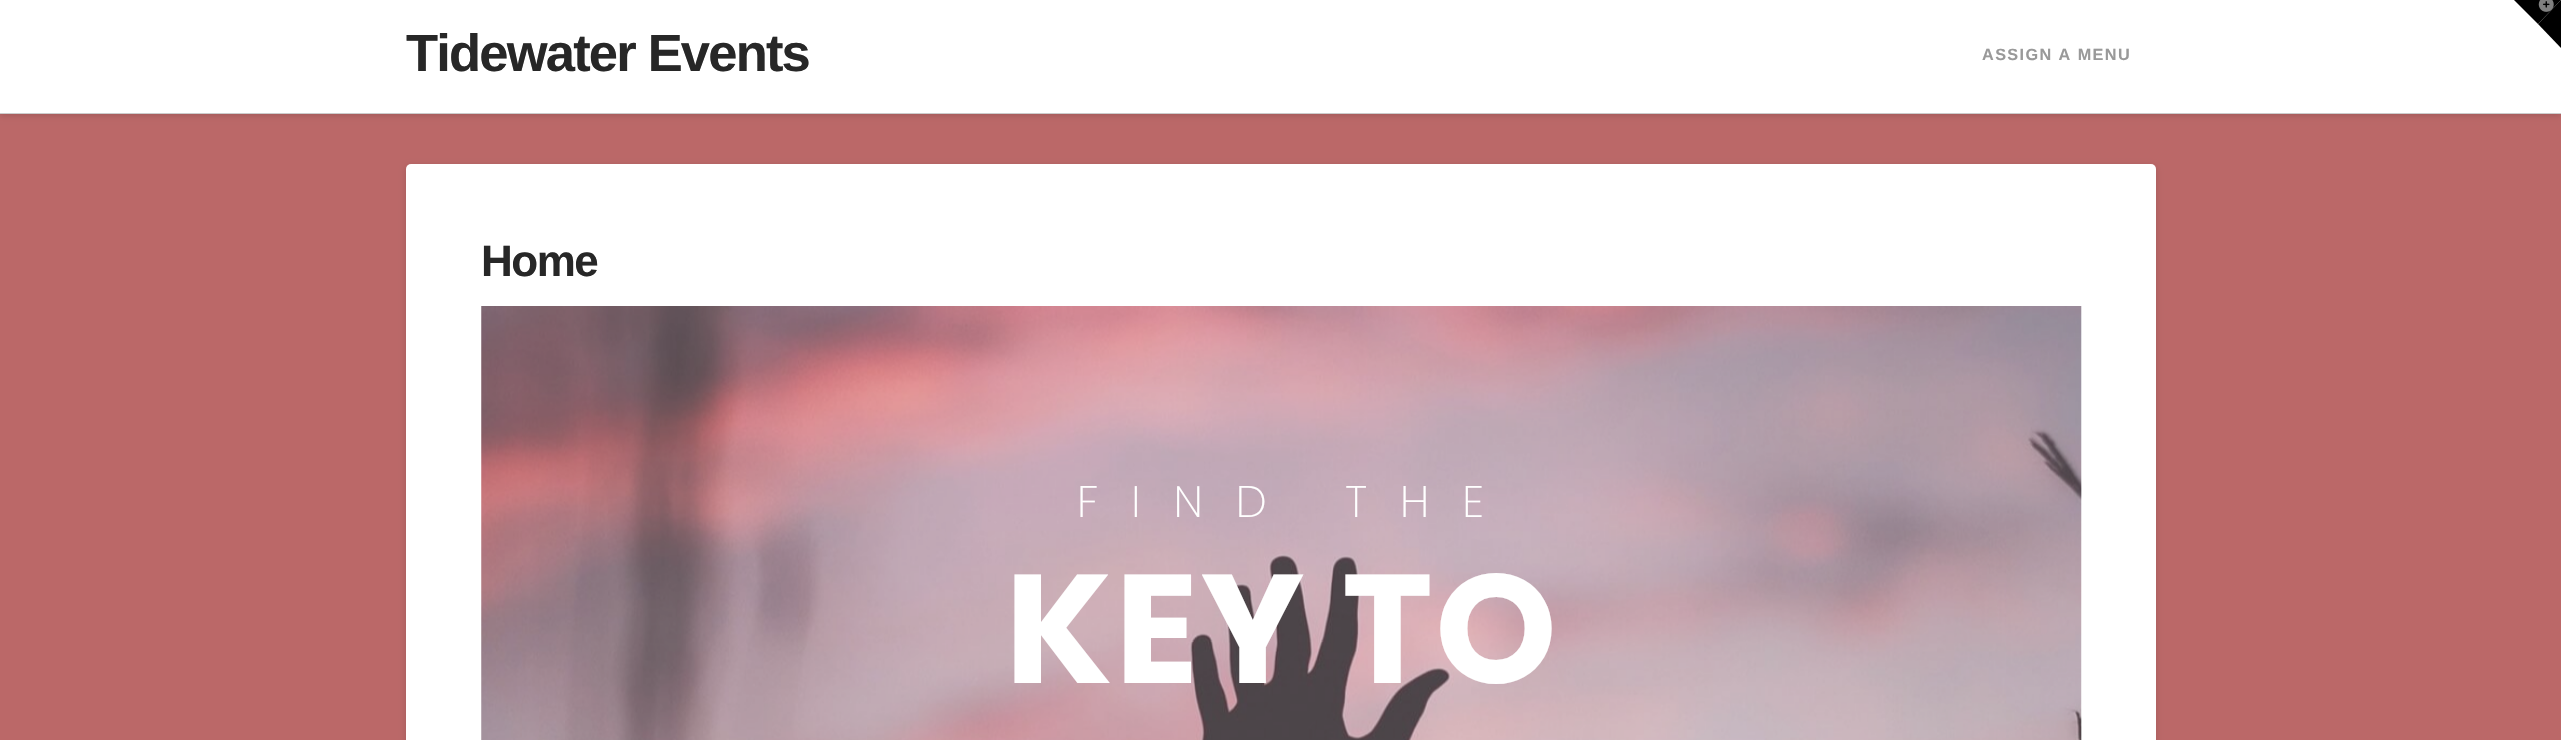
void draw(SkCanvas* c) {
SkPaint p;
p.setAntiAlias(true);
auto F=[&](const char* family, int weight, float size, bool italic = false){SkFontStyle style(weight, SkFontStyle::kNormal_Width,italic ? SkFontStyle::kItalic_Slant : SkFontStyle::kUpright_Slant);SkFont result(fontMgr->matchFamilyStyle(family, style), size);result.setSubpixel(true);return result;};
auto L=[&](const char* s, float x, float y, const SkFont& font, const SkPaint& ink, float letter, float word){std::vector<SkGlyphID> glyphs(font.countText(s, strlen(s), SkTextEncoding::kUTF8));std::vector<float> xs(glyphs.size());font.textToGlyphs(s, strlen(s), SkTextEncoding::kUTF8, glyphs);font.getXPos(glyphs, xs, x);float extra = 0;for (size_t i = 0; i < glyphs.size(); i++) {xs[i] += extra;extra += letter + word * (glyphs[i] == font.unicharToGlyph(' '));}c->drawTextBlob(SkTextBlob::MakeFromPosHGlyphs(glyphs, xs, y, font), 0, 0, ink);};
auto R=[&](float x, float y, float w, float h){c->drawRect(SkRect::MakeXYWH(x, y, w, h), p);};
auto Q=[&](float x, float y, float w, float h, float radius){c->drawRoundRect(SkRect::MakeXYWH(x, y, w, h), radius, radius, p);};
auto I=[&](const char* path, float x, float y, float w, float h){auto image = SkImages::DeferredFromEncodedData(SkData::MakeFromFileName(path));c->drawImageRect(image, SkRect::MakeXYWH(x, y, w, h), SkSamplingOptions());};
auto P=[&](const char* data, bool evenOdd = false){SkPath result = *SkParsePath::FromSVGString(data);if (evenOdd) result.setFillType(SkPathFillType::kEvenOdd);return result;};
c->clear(0xffbb6868);
p.setColor(0x21000000);
p.setMaskFilter(SkMaskFilter::MakeBlur(kNormal_SkBlurStyle, 3));
c->drawRect(SkRect::MakeXYWH(0,3,2561,113),p);
p.setMaskFilter(nullptr);
p.setColor(0xffffffff);
R(0,0,2561,113);
p.setColor(0xff000000);
c->drawPath(P("M2514 0h47l-23 24z"),p);
c->drawPath(P("M2561 0v48l-23-24z"),p);
I("1.png",2538,0,16,12);
p.setColor(0xffcccccc);
R(0,113,2561,1);
auto f1 = F("Liberation Sans",700,52.5);
p.setColor(0xff272727);
L("Tidewater Events",406,71,f1,p,-1.8,0);
auto f2 = F("Liberation Sans",700,16.25);
p.setColor(0xff999999);
L("ASSIGN A MENU",1982,60,f2,p,1.4,0);
p.setColor(0x21000000);
p.setMaskFilter(SkMaskFilter::MakeBlur(kNormal_SkBlurStyle, 3));
c->drawRoundRect(SkRect::MakeXYWH(406,166,1750,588),5,5,p);
p.setMaskFilter(nullptr);
p.setColor(0xffffffff);
Q(406,164,1750,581,5);
auto f3 = F("Liberation Sans",700,44);
p.setColor(0xff272727);
L("Home",481,276,f3,p,-1.5,0);
I("2.png",481,306,1601,434);
auto f4 = F("Poppins",200,44);
p.setColor(0xffffffff);
L("FIND THE",1077,517,f4,p,33,0);
auto f5 = F("Poppins",700,154.5);
L("KEY TO",1005,683,f5,p,2.25,0);
}
